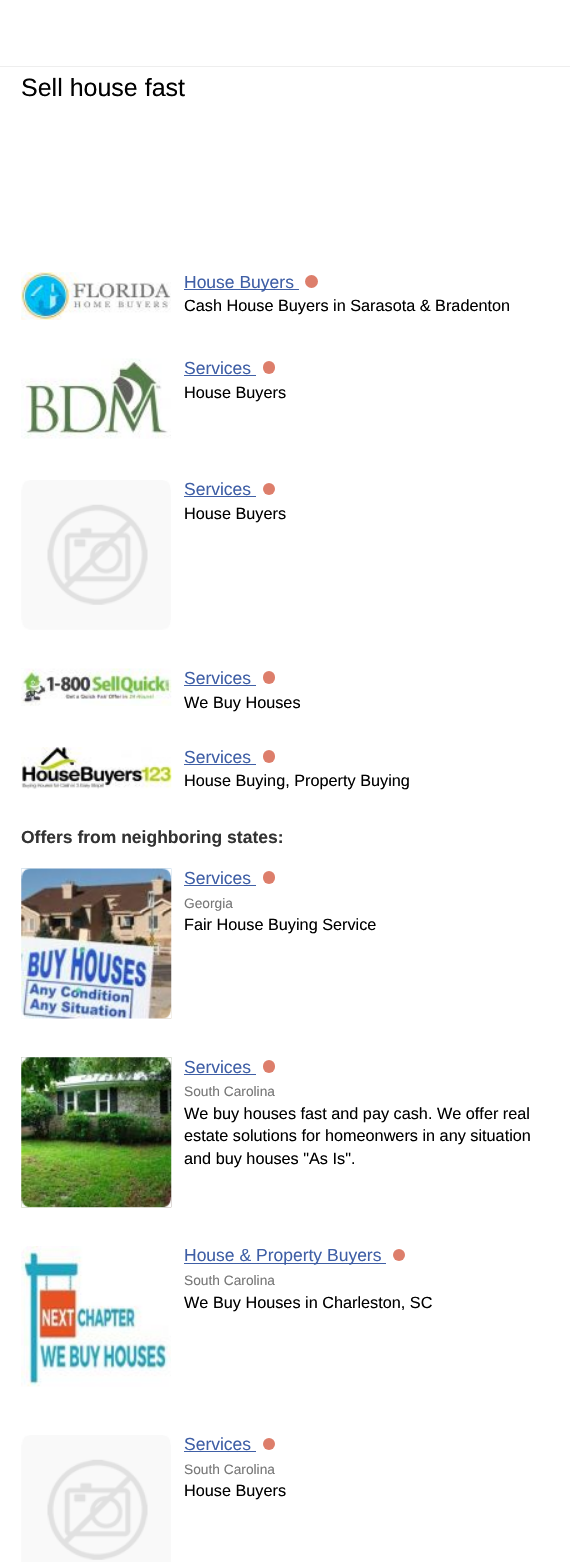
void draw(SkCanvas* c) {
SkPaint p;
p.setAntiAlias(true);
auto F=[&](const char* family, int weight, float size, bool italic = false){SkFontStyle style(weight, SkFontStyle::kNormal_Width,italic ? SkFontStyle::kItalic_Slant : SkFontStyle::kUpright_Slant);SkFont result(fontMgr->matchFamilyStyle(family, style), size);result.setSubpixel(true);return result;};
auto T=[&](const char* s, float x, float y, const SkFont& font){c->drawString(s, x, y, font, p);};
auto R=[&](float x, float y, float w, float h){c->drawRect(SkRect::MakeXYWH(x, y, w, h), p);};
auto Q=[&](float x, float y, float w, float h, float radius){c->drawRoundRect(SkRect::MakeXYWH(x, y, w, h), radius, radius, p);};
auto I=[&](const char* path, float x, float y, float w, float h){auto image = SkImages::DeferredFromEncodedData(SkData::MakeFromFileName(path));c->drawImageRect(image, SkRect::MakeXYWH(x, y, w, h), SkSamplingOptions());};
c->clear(0xffffffff);
p.setColor(0x99ffffff);
p.setMaskFilter(SkMaskFilter::MakeBlur(kNormal_SkBlurStyle, 3));
c->drawRect(SkRect::MakeXYWH(0,6,570,68),p);
p.setMaskFilter(nullptr);
p.setColor(0xffeeeeee);
R(0,66,570,1);
auto f1 = F("Liberation Sans",400,25);
p.setColor(0xff000000);
T("Sell house fast",21,96,f1);
I("1.png",21,272,150,48);
I("2.png",21,272,7,9);
p.setColor(0xff3f5fa6);
R(184,289,115,1);
auto f2 = F("Liberation Sans",400,17.5);
T("House Buyers",184,288,f2);
p.setColor(0xffdd7e6b);
c->drawCircle(311.5,281.5,6.5,p);
auto f3 = F("Liberation Sans",400,16.25);
p.setColor(0xff000000);
T("Cash House Buyers in Sarasota & Bradenton",184,311,f3);
I("3.png",21,358,150,81);
p.setColor(0xff3f5fa6);
T("Services",184,374,f2);
R(184,375,72,1);
p.setColor(0xffdd7e6b);
Q(263,361,12,13,6);
p.setColor(0xff000000);
T("House Buyers",184,398,f3);
I("4.png",21,480,150,150);
p.setColor(0xff3f5fa6);
T("Services",184,495,f2);
R(184,496,72,1);
p.setColor(0xffdd7e6b);
c->drawCircle(269,489,6,p);
p.setColor(0xff000000);
T("House Buyers",184,519,f3);
I("5.png",21,668,151,38);
I("6.png",21,669,3,6);
p.setColor(0xff3f5fa6);
T("Services",184,684,f2);
R(184,685,72,1);
p.setColor(0xffdd7e6b);
Q(263,671,12,13,6);
p.setColor(0xff000000);
T("We Buy Houses",184,708,f3);
I("7.png",21,747,151,42);
p.setColor(0xff3f5fa6);
T("Services",184,763,f2);
R(184,764,72,1);
p.setColor(0xffdd7e6b);
Q(263,750,12,13,6);
p.setColor(0xff000000);
T("House Buying, Property Buying",184,786,f3);
auto f4 = F("Liberation Sans",700,17.5);
p.setColor(0xff333333);
T("Offers from neighboring states:",21,843,f4);
I("8.png",21,868,151,151);
I("9.png",21,868,151,151);
p.setColor(0xff3f5fa6);
T("Services",184,884,f2);
R(184,885,72,1);
p.setColor(0xffdd7e6b);
Q(263,871,12,13,6);
auto f5 = F("Liberation Sans",400,13.75);
p.setColor(0xff777777);
T("Georgia",184,908,f5);
p.setColor(0xff000000);
T("Fair House Buying Service",184,930,f3);
I("10.png",21,1057,151,151);
I("11.png",21,1057,151,151);
p.setColor(0xff3f5fa6);
T("Services",184,1073,f2);
R(184,1074,72,1);
p.setColor(0xffdd7e6b);
Q(263,1060,12,13,6);
p.setColor(0xff777777);
T("South Carolina",184,1096,f5);
p.setColor(0xff000000);
T("We buy houses fast and pay cash. We offer real",184,1119,f3);
T("estate solutions for homeonwers in any situation",184,1141,f3);
T("and buy houses \"As Is\".",184,1164,f3);
I("12.png",21,1246,150,141);
I("13.png",21,1246,6,6);
p.setColor(0xff3f5fa6);
R(184,1263,202,1);
T("House & Property Buyers",184,1261,f2);
p.setColor(0xffdd7e6b);
c->drawCircle(399,1255,6,p);
p.setColor(0xff777777);
T("South Carolina",184,1285,f5);
p.setColor(0xff000000);
T("We Buy Houses in Charleston, SC",184,1308,f3);
I("14.png",21,1435,150,127);
p.setColor(0xff3f5fa6);
T("Services",184,1450,f2);
R(184,1451,72,1);
p.setColor(0xffdd7e6b);
c->drawCircle(269,1444,6,p);
p.setColor(0xff777777);
T("South Carolina",184,1474,f5);
p.setColor(0xff000000);
T("House Buyers",184,1496,f3);
}
